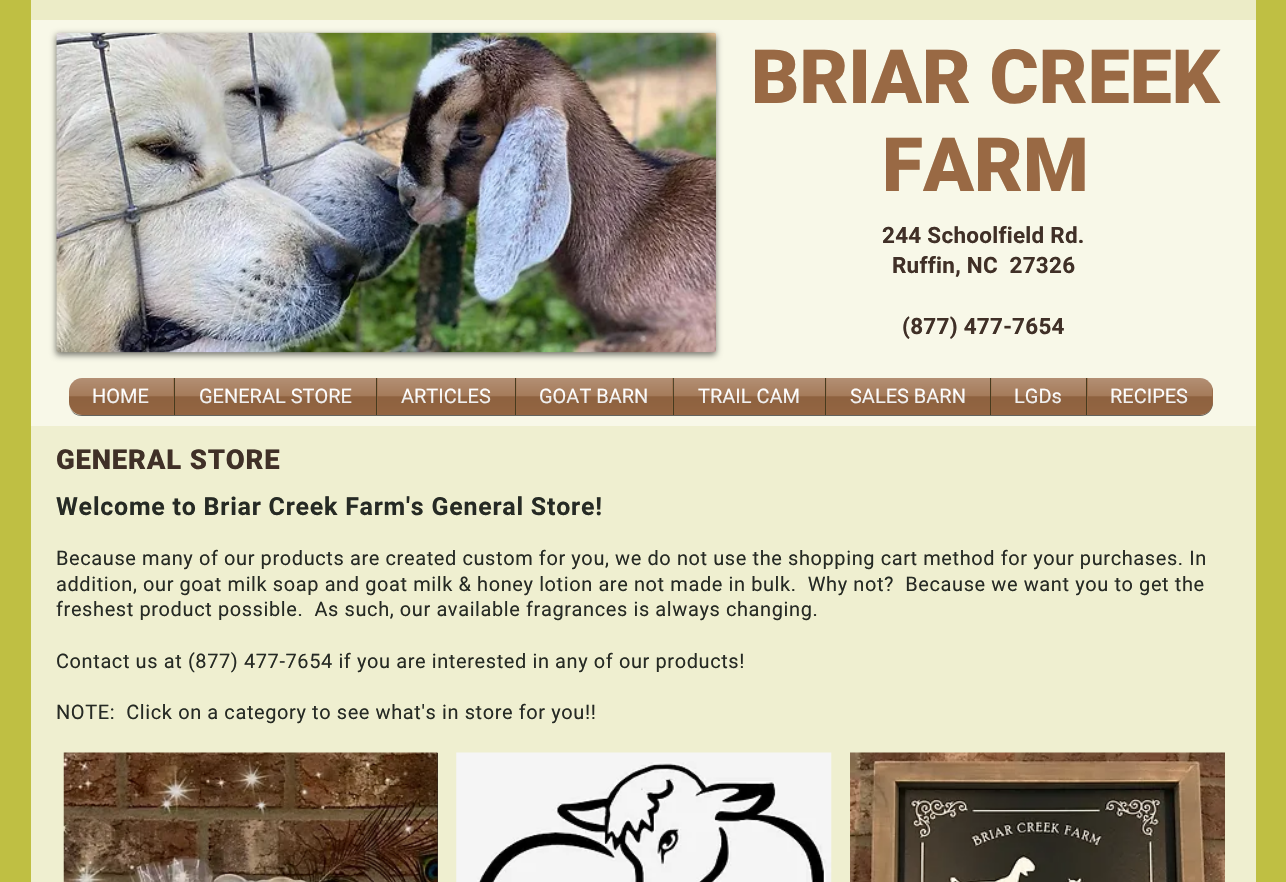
void draw(SkCanvas* c) {
SkPaint p;
p.setAntiAlias(true);
auto F=[&](const char* family, int weight, float size, bool italic = false){SkFontStyle style(weight, SkFontStyle::kNormal_Width,italic ? SkFontStyle::kItalic_Slant : SkFontStyle::kUpright_Slant);SkFont result(fontMgr->matchFamilyStyle(family, style), size);result.setSubpixel(true);return result;};
auto T=[&](const char* s, float x, float y, const SkFont& font){c->drawString(s, x, y, font, p);};
auto L=[&](const char* s, float x, float y, const SkFont& font, const SkPaint& ink, float letter, float word){std::vector<SkGlyphID> glyphs(font.countText(s, strlen(s), SkTextEncoding::kUTF8));std::vector<float> xs(glyphs.size());font.textToGlyphs(s, strlen(s), SkTextEncoding::kUTF8, glyphs);font.getXPos(glyphs, xs, x);float extra = 0;for (size_t i = 0; i < glyphs.size(); i++) {xs[i] += extra;extra += letter + word * (glyphs[i] == font.unicharToGlyph(' '));}c->drawTextBlob(SkTextBlob::MakeFromPosHGlyphs(glyphs, xs, y, font), 0, 0, ink);};
auto R=[&](float x, float y, float w, float h){c->drawRect(SkRect::MakeXYWH(x, y, w, h), p);};
auto I=[&](const char* path, float x, float y, float w, float h){auto image = SkImages::DeferredFromEncodedData(SkData::MakeFromFileName(path));c->drawImageRect(image, SkRect::MakeXYWH(x, y, w, h), SkSamplingOptions());};
auto P=[&](const char* data, bool evenOdd = false){SkPath result = *SkParsePath::FromSVGString(data);if (evenOdd) result.setFillType(SkPathFillType::kEvenOdd);return result;};
c->clear(0xffbfbf43);
p.setColor(0xffececc7);
R(31,0,1225,20);
p.setColor(0xfff8f8e8);
R(31,20,1225,406);
p.setColor(0x87000000);
p.setMaskFilter(SkMaskFilter::MakeBlur(kNormal_SkBlurStyle, 3));
c->drawRoundRect(SkRect::MakeXYWH(56,35,660,320),2.5,2.5,p);
p.setMaskFilter(nullptr);
I("1.png",56,32,660,321);
auto f1 = F("Roboto",900,75);
p.setColor(0xff996944);
T("BRIAR CREEK",751,103,f1);
T("FARM",882,191,f1);
auto f2 = F("Roboto",700,22.5);
p.setColor(0xff403027);
L("244 Schoolfield Rd.",882,243,f2,p,.25,0);
L("Ruffin, NC  27326",892,273,f2,p,.25,0);
L("(877) 477-7654",902,334,f2,p,.25,0);
p.setColor(0xff63635d);
c->drawPath(P("M70 408c2 5 6 8 12 8h1118c7 0 13-6 13-13v-11l-1-4v14c0 7-5 13-12 13h-1119c-5 0-9-3-11-7z"),p);
I("2.png",69,378,1144,37);
p.setColor(0xff996944);
c->drawPath(P("M82 378h92v37h-92c-7 0-13-6-13-13v-11c0-7 6-13 13-13z"),p);
auto f3 = F("Roboto",400,20);
p.setColor(0xffffffff);
T("HOME",92,403,f3);
I("3.png",69,378,105,37);
p.setColor(0xff996944);
R(175,378,201,37);
p.setColor(0xff473b1e);
R(174,378,1,37);
p.setColor(0xffffffff);
T("GENERAL STORE",199,403,f3);
I("4.png",175,378,201,37);
p.setColor(0xff996944);
R(377,378,138,37);
p.setColor(0xff473b1e);
R(376,378,1,37);
p.setColor(0xffffffff);
T("ARTICLES",401,403,f3);
I("5.png",377,378,138,37);
p.setColor(0xff996944);
R(516,378,157,37);
p.setColor(0xff473b1e);
R(515,378,1,37);
p.setColor(0xffffffff);
T("GOAT BARN",539,403,f3);
I("6.png",516,378,157,37);
p.setColor(0xff996944);
R(674,378,151,37);
p.setColor(0xff473b1e);
R(673,378,1,37);
p.setColor(0xffffffff);
T("TRAIL CAM",698,403,f3);
I("7.png",673,378,152,37);
p.setColor(0xff996944);
R(826,378,164,37);
p.setColor(0xff473b1e);
R(825,378,1,37);
p.setColor(0xffffffff);
T("SALES BARN",850,403,f3);
I("8.png",826,378,164,37);
p.setColor(0xff996944);
R(991,378,95,37);
p.setColor(0xff473b1e);
R(990,378,1,37);
p.setColor(0xffffffff);
T("LGDs",1014,403,f3);
I("9.png",991,378,95,37);
p.setColor(0xff996944);
c->drawPath(P("M1086 378h114c7 0 13 6 13 13v11c0 7-6 13-13 13h-114z"),p);
p.setColor(0xff473b1e);
R(1086,378,1,37);
p.setColor(0xffffffff);
T("RECIPES",1110,403,f3);
I("10.png",1087,378,126,37);
p.setColor(0xffefefd0);
R(31,426,1225,456);
auto f4 = F("Roboto",900,27.5);
p.setColor(0xff403027);
L("GENERAL STORE",56,469,f4,p,.8,0);
auto f5 = F("Roboto",700,25);
p.setColor(0xff262a24);
L("Welcome to Briar Creek Farm's General Store!",56,515,f5,p,.75,0);
L("Because many of our products are created custom for you, we do not use the shopping cart method for your purchases. In",56,565,f3,p,.6,0);
L("addition, our goat milk soap and goat milk & honey lotion are not made in bulk.  Why not?  Because we want you to get the",56,591,f3,p,.6,0);
L("freshest product possible.  As such, our available fragrances is always changing.",56,616,f3,p,.6,0);
L("Contact us at (877) 477-7654 if you are interested in any of our products!",56,668,f3,p,.6,0);
L("NOTE:  Click on a category to see what's in store for you!!",56,719,f3,p,.6,0);
p.setColor(0xff2f2e2e);
R(437,753,1,129);
I("11.png",63,752,375,130);
I("12.png",456,752,376,130);
I("13.png",850,752,375,130);
}
